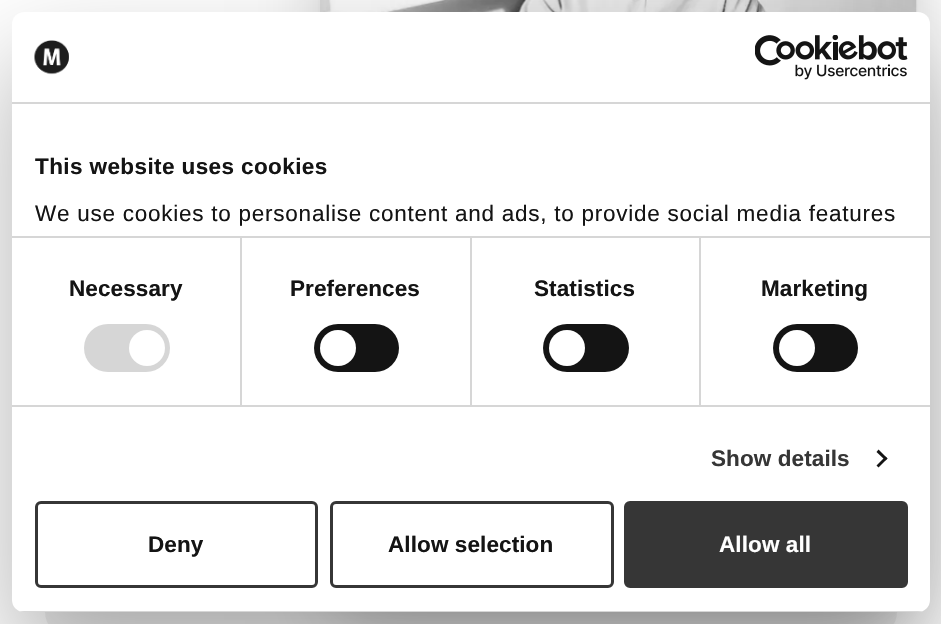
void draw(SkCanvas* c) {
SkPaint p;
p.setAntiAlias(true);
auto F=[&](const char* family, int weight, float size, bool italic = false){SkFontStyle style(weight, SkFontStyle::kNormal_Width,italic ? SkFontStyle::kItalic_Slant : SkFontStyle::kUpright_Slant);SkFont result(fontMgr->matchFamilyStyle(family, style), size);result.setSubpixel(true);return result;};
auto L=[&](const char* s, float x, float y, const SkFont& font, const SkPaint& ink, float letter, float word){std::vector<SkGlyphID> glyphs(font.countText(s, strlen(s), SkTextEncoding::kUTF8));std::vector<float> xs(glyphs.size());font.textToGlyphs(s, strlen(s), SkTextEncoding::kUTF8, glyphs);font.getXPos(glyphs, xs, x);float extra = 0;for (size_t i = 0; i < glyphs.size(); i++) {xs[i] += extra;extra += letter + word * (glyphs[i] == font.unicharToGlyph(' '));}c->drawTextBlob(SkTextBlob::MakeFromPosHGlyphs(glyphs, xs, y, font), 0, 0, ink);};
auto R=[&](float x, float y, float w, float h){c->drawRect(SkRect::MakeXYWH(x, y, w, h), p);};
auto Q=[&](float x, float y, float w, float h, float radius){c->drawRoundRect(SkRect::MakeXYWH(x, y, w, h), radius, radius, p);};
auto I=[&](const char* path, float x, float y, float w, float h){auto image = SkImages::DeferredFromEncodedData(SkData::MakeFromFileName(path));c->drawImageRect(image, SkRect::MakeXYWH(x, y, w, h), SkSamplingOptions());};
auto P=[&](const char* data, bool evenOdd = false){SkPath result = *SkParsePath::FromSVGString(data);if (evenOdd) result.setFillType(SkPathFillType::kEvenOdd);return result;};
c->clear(0xffffffff);
p.setColor(0xfff2f2f2);
Q(45,570,852,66,24);
p.setColor(0x40000000);
p.setMaskFilter(SkMaskFilter::MakeBlur(kNormal_SkBlurStyle, 37.5));
c->drawRect(SkRect::MakeXYWH(336,-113,564,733),p);
p.setMaskFilter(nullptr);
p.setStroke(true);
p.setStrokeWidth(2);
p.setColor(0xffe7e7e7);
c->drawRect(SkRect::MakeXYWH(319,-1,598,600),p);
p.setStroke(false);
p.setColor(0xfff4f4f4);
R(916,0,1,12);
I("1.png",320,0,597,12);
p.setColor(0x4d000000);
p.setMaskFilter(SkMaskFilter::MakeBlur(kNormal_SkBlurStyle, 51));
c->drawRoundRect(SkRect::MakeXYWH(12,60,918,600),12,12,p);
p.setMaskFilter(nullptr);
p.setColor(0xffffffff);
Q(12,12,918,600,12);
p.setColor(0xffd6d6d6);
R(12,102,918,2);
I("2.png",34,40,35,35);
I("3.png",755,35,153,45);
R(240,237,2,168);
R(470,237,2,168);
R(699,237,2,168);
R(12,236,918,2);
auto f1 = F("Liberation Sans",700,22.5);
p.setColor(0xff141414);
L("This website uses cookies",35,174,f1,p,.4,0);
auto f2 = F("Liberation Sans",400,22.5);
L("We use cookies to personalise content and ads, to provide social media features",35,221,f2,p,.75,0);
p.setColor(0xffd6d6d6);
R(12,405,918,2);
p.setColor(0xff141414);
L("Necessary",69,296,f1,p,.1,0);
p.setColor(0xffd6d6d6);
Q(84,324,86,48,24);
p.setColor(0xffffffff);
c->drawCircle(147,348,18,p);
p.setColor(0xff141414);
L("Preferences",290,296,f1,p,.1,0);
Q(314,324,85,48,24);
p.setColor(0xffffffff);
c->drawCircle(338,348,18,p);
p.setColor(0xff141414);
L("Statistics",534,296,f1,p,.1,0);
Q(543,324,86,48,24);
p.setColor(0xffffffff);
c->drawCircle(567,348,18,p);
p.setColor(0xff141414);
L("Marketing",761,296,f1,p,.1,0);
Q(773,324,85,48,24);
p.setColor(0xffffffff);
c->drawCircle(797,348,18,p);
p.setColor(0xff363636);
L("Show details",711,466,f1,p,.1,0);
p.setColor(0xff141414);
c->drawPath(P("M878.5 449.5l9 9l-2 2l-9-8.5z"),p);
c->drawPath(P("M885.5 456.5l2 2l-9 9l-2-2z"),p);
c->save();
c->clipPath(P("M24 12h894c6.5 0 12 5.5 12 12v576c0 6.5-5.5 12-12 12h-894c-6.5 0-12-5.5-12-12v-576c0-6.5 5.5-12 12-12z"),true);
p.setColor(0xffd6d6d6);
R(12,611,918,1);
c->restore();
p.setStroke(true);
p.setStrokeWidth(3);
p.setColor(0xff363636);
c->drawRoundRect(SkRect::MakeXYWH(36.5,502.5,280,84),4.5,4.5,p);
p.setStroke(false);
p.setColor(0xff141414);
L("Deny",148,552,f1,p,.1,0);
p.setStroke(true);
p.setColor(0xff363636);
c->drawRoundRect(SkRect::MakeXYWH(331.5,502.5,281,84),4.5,4.5,p);
p.setStroke(false);
p.setColor(0xff141414);
L("Allow selection",388,552,f1,p,.1,0);
p.setColor(0xff363636);
c->drawRoundRect(SkRect::MakeXYWH(625.5,502.5,281,84),4.5,4.5,p);
p.setStroke(true);
c->drawRoundRect(SkRect::MakeXYWH(625.5,502.5,281,84),4.5,4.5,p);
p.setStroke(false);
p.setColor(0xffffffff);
L("Allow all",719,552,f1,p,.1,0);
}
